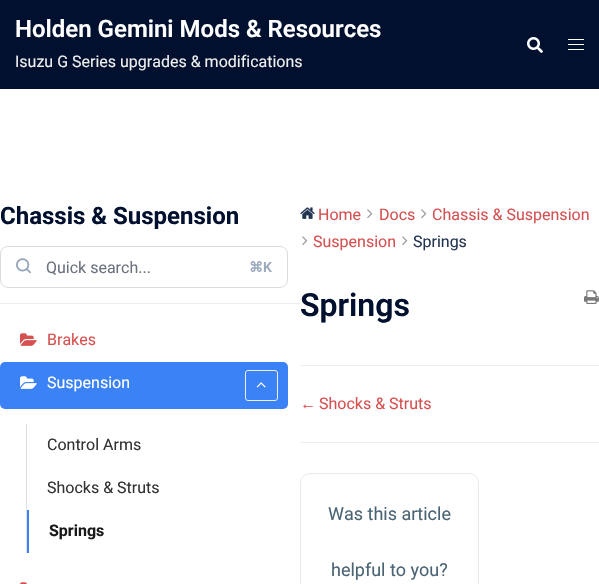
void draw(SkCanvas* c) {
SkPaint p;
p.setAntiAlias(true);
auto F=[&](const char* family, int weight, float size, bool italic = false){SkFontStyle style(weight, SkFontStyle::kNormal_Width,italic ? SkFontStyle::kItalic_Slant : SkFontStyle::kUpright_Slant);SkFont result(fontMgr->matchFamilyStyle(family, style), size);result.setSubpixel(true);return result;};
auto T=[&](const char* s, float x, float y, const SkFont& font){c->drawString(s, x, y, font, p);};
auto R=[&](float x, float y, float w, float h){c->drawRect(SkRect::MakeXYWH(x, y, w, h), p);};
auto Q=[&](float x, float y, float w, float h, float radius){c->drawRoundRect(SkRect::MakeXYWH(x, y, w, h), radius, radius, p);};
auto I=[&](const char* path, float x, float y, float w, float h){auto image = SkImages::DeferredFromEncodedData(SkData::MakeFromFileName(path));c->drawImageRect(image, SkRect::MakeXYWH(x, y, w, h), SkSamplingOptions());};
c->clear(0xffffffff);
p.setColor(0xff00102e);
R(0,0,599,89);
auto f1 = F("Roboto",600,24);
p.setColor(0xffffffff);
T("Holden Gemini Mods & Resources",15,37,f1);
auto f2 = F("Roboto",400,16);
p.setColor(0xffefefef);
T("Isuzu G Series upgrades & modifications",15,67,f2);
I("1.png",527,37,16,16);
p.setColor(0xffffffff);
R(568,39,16,1);
R(568,44,16,1);
R(568,49,16,1);
auto f3 = F("Roboto",700,24);
p.setColor(0xff00102e);
T("Chassis & Suspension",0,224,f3);
p.setColor(0xffeeeeee);
R(0,303,300,1);
p.setStroke(true);
p.setStrokeWidth(1);
p.setColor(0xffdbdbdb);
c->drawRoundRect(SkRect::MakeXYWH(.5,246.5,287,41),7.5,7.5,p);
I("2.png",16,258,15,16);
p.setStroke(false);
p.setColor(0xff6b7280);
T("Quick search...",46,273,f2);
auto f4 = F("DejaVu Sans",700,14);
p.setColor(0xff9caabd);
T("⌘",249,272,f4);
auto f5 = F("Roboto",600,14);
T("K",263,272,f5);
I("3.png",20,333,17,13);
p.setColor(0xffd65050);
T("Brakes",47,345,f2);
p.setColor(0xff3b82f6);
Q(0,362,288,47,5);
I("4.png",20,376,17,13);
p.setColor(0xffffffff);
T("Suspension",47,388,f2);
p.setStroke(true);
p.setColor(0xffeeeeee);
c->drawRoundRect(SkRect::MakeXYWH(245.5,370.5,32,30),2.5,2.5,p);
I("5.png",256,382,10,6);
p.setStroke(false);
p.setColor(0xffdddddd);
R(26,424,1,129);
p.setColor(0xff333333);
T("Control Arms",47,450,f2);
T("Shocks & Struts",47,493,f2);
p.setColor(0xff3b82f6);
R(27,510,2,43);
auto f6 = F("Roboto",700,16);
p.setColor(0xff191919);
T("Springs",49,536,f6);
I("6.png",20,582,7,2);
I("7.png",300,207,15,12);
p.setColor(0xffd65050);
T("Home",318,220,f2);
I("8.png",367,209,6,10);
T("Docs",379,220,f2);
I("8.png",421,209,6,10);
T("Chassis & Suspension",432,220,f2);
I("8.png",302,236,6,10);
T("Suspension",313,247,f2);
I("8.png",402,236,6,10);
p.setColor(0xff233452);
T("Springs",413,247,f2);
auto f7 = F("Roboto",600,32);
p.setColor(0xff00102e);
T("Springs",300,316,f7);
I("9.png",584,290,15,14);
p.setColor(0xffeeeeee);
R(300,365,299,1);
R(300,442,299,1);
auto f8 = F("Liberation Sans",400,16);
p.setColor(0xffd65050);
T("←",300,409,f8);
T("Shocks & Struts",319,409,f2);
p.setStroke(true);
p.setColor(0xffe9e9e9);
c->drawRoundRect(SkRect::MakeXYWH(300.5,473.5,178,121),9.5,9.5,p);
auto f9 = F("Roboto",400,18);
p.setStroke(false);
p.setColor(0xff4a6474);
T("Was this article",328,520,f9);
T("helpful to you?",331,576,f9);
}
